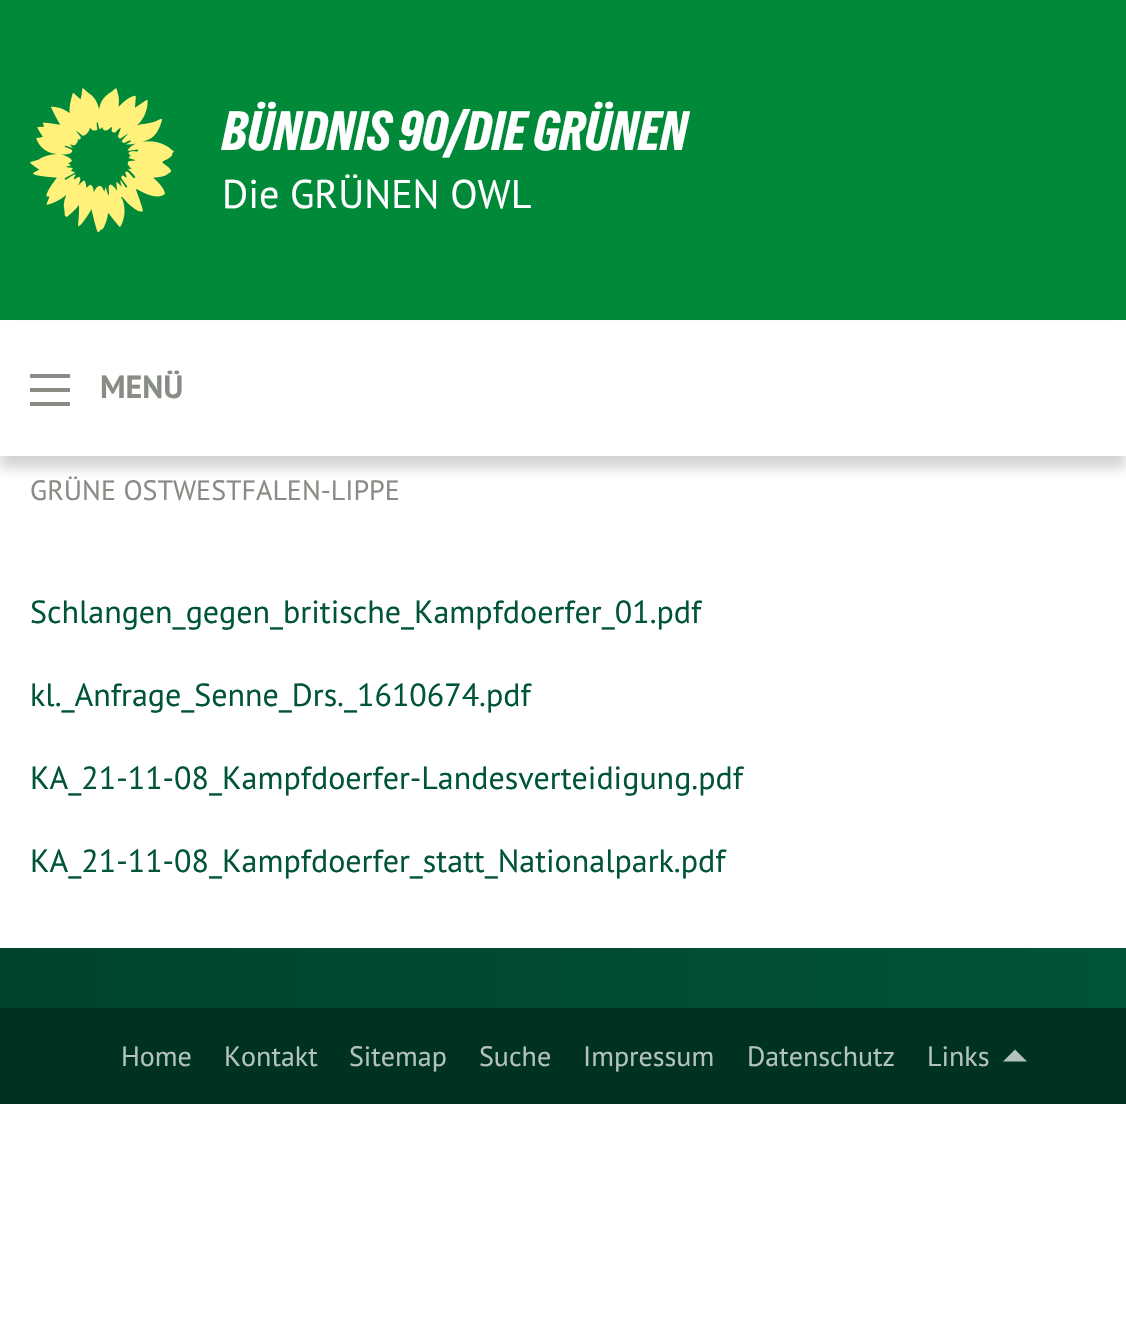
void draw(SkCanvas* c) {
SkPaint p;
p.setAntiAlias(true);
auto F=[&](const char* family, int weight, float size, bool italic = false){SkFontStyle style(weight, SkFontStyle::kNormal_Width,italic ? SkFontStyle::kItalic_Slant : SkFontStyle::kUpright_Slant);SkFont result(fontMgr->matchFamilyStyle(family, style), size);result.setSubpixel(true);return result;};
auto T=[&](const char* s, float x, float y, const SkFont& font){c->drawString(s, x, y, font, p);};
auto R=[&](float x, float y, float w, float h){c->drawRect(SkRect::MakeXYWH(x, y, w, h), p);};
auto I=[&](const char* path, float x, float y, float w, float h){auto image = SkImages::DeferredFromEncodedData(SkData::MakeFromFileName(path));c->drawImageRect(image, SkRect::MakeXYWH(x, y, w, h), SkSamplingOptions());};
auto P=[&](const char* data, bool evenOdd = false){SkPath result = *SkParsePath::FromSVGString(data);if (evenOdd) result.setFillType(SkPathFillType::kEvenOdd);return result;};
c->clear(0xffffffff);
p.setColor(0xff008939);
R(0,0,1126,320);
I("1.png",30,88,144,144);
auto f1 = F("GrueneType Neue",400,52);
p.setColor(0xffffffff);
T("BÜNDNIS 90/DIE GRÜNEN",222,150,f1);
auto f2 = F("PT Sans",400,40);
T("Die GRÜNEN OWL",222,208,f2);
p.setColor(0x33201d1b);
p.setMaskFilter(SkMaskFilter::MakeBlur(kNormal_SkBlurStyle, 6));
c->drawRect(SkRect::MakeXYWH(0,332,1126,136),p);
p.setMaskFilter(nullptr);
p.setColor(0xffffffff);
R(0,323,1126,133);
p.setColor(0xff878c85);
R(30,402,40,4);
R(30,388,40,4);
R(30,374,40,4);
auto f3 = F("PT Sans",700,32);
T("MENÜ",100,398,f3);
auto f4 = F("PT Sans",400,28);
T("GRÜNE OSTWESTFALEN-LIPPE",30,500,f4);
auto f5 = F("PT Sans",400,32);
p.setColor(0xff005437);
T("Schlangen_gegen_britische_Kampfdoerfer_01.pdf",30,623,f5);
T("kl._Anfrage_Senne_Drs._1610674.pdf",30,706,f5);
T("KA_21-11-08_Kampfdoerfer-Landesverteidigung.pdf",30,789,f5);
T("KA_21-11-08_Kampfdoerfer_statt_Nationalpark.pdf",30,872,f5);
{
const SkColor colors[] = {0xff00432c,0xff005437};
const float stops[] = {0,1};
const SkPoint ends[] = {{0,978}, {1126,978}};
p.setShader(SkGradientShader::MakeLinear(ends, colors, stops, 2, SkTileMode::kClamp));
p.setAlpha(255);
}
R(0,948,1126,60);
p.setShader(nullptr);
p.setColor(0xff003221);
R(0,1008,1126,96);
p.setColor(0xffb3c2bc);
T("Home",121,1066,f4);
T("Kontakt",224,1066,f4);
T("Sitemap",349,1066,f4);
T("Suche",479,1066,f4);
T("Impressum",583,1066,f4);
T("Datenschutz",747,1066,f4);
T("Links",927,1066,f4);
c->drawPath(P("M1027 1061.5h-24l12-12z"),p);
}
